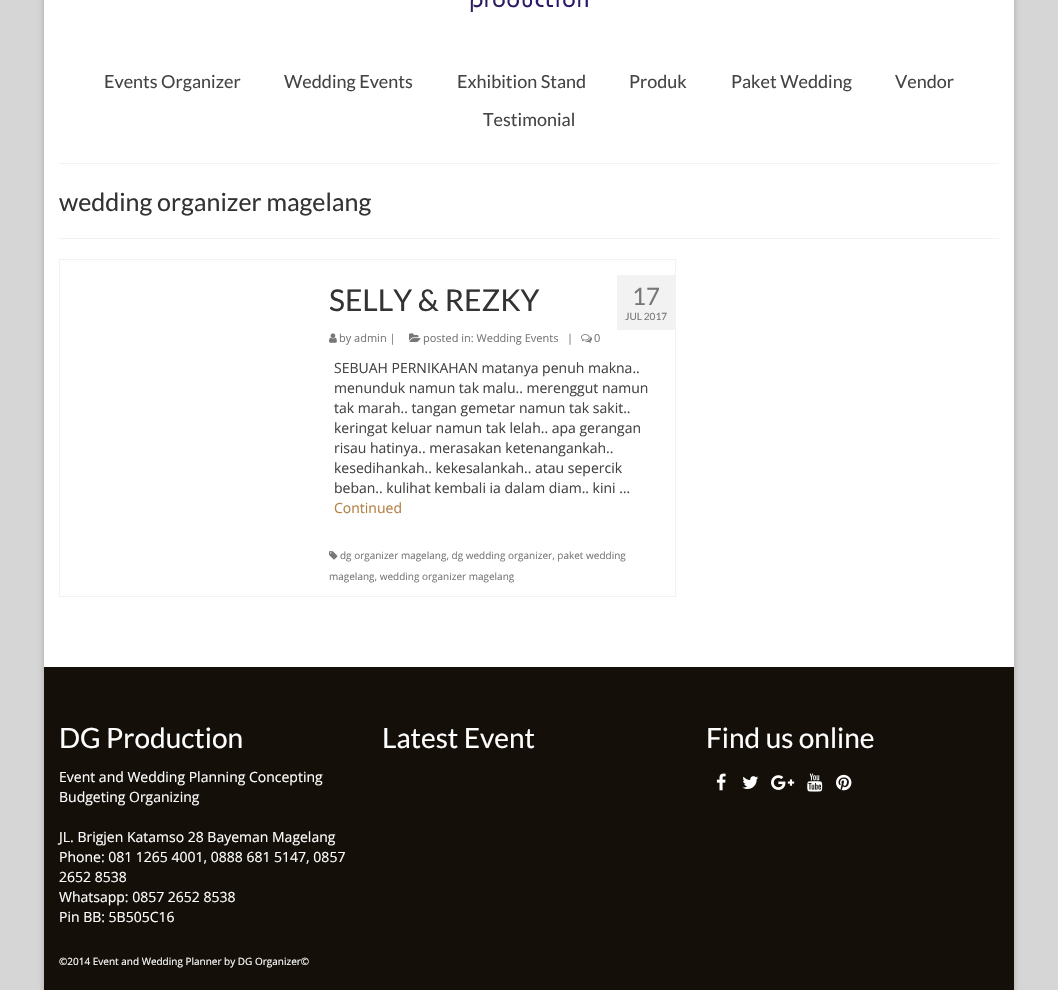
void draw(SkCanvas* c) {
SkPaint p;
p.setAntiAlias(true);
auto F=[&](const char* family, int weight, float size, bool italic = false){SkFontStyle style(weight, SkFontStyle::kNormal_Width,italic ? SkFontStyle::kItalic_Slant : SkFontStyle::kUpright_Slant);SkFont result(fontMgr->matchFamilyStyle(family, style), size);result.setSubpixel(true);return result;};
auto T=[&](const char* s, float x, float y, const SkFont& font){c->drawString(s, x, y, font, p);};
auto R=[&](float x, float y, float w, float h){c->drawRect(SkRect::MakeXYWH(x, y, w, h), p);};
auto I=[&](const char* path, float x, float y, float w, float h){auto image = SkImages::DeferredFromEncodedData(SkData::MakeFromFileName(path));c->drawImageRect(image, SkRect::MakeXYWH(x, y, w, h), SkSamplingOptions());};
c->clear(0xffd6d6d6);
p.setColor(0x29000000);
p.setMaskFilter(SkMaskFilter::MakeBlur(kNormal_SkBlurStyle, 2.5));
c->drawRect(SkRect::MakeXYWH(43,-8,972,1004),p);
p.setMaskFilter(nullptr);
p.setColor(0xffffffff);
R(44,0,970,667);
I("1.png",470,0,118,12);
auto f1 = F("Lato",400,18);
p.setColor(0xff444444);
T("Events Organizer",104,88,f1);
T("Wedding Events",284,88,f1);
T("Exhibition Stand",457,88,f1);
T("Produk",629,88,f1);
T("Paket Wedding",731,88,f1);
T("Vendor",895,88,f1);
T("Testimonial",483,126,f1);
p.setColor(0xfff2f2f2);
R(59,163,940,1);
R(59,238,940,1);
auto f2 = F("Lato",400,25);
p.setColor(0xff333333);
T("wedding organizer magelang",59,211,f2);
p.setStroke(true);
p.setStrokeWidth(1);
p.setColor(0xfff2f2f2);
c->drawRect(SkRect::MakeXYWH(59.5,259.5,616,337),p);
auto f3 = F("Lato",400,30);
p.setStroke(false);
p.setColor(0xff333333);
T("SELLY & REZKY",329,311,f3);
I("2.png",329,333,8,10);
auto f4 = F("Open Sans",400,11);
p.setColor(0xff777777);
T("by admin |",339,342,f4);
I("3.png",409,333,12,9);
T("posted in: Wedding Events",423,342,f4);
T("|",567,342,f4);
I("4.png",581,334,11,9);
T("0",594,342,f4);
p.setColor(0xfff2f2f2);
R(617,275,58,55);
auto f5 = F("Lato",400,24);
p.setColor(0xff777777);
T("17",632,305,f5);
auto f6 = F("Lato",400,10);
T("JUL 2017",625,320,f6);
auto f7 = F("Open Sans",400,14);
p.setColor(0xff444444);
T("SEBUAH PERNIKAHAN matanya penuh makna..",334,373,f7);
T("menunduk namun tak malu.. merenggut namun",334,393,f7);
T("tak marah.. tangan gemetar namun tak sakit..",334,413,f7);
T("keringat keluar namun tak lelah.. apa gerangan",334,433,f7);
T("risau hatinya.. merasakan ketenangankah..",334,453,f7);
T("kesedihankah.. kekesalankah.. atau sepercik",334,473,f7);
T("beban.. kulihat kembali ia dalam diam.. kini …",334,493,f7);
p.setColor(0xffb58044);
T("Continued",334,513,f7);
I("5.png",329,551,9,9);
auto f8 = F("Open Sans",400,10);
p.setColor(0xff777777);
T("dg organizer magelang, dg wedding organizer, paket wedding",340,559,f8);
T("magelang, wedding organizer magelang",329,580,f8);
p.setColor(0xff140f09);
R(44,667,970,323);
auto f9 = F("Lato",400,28);
p.setColor(0xffffffff);
T("DG Production",59,748,f9);
T("Event and Wedding Planning Concepting",59,782,f7);
T("Budgeting Organizing",59,802,f7);
T("JL. Brigjen Katamso 28 Bayeman Magelang",59,842,f7);
T("Phone: 081 1265 4001, 0888 681 5147, 0857",59,862,f7);
T("2652 8538",59,882,f7);
T("Whatsapp: 0857 2652 8538",59,902,f7);
T("Pin BB: 5B505C16",59,922,f7);
T("Latest Event",382,748,f9);
T("Find us online",706,748,f9);
I("6.png",716,773,10,18);
I("7.png",742,776,17,13);
I("8.png",771,775,24,15);
I("9.png",807,773,16,19);
I("10.png",836,774,16,17);
T("©2014 Event and Wedding Planner by DG Organizer©",59,965,f8);
}
